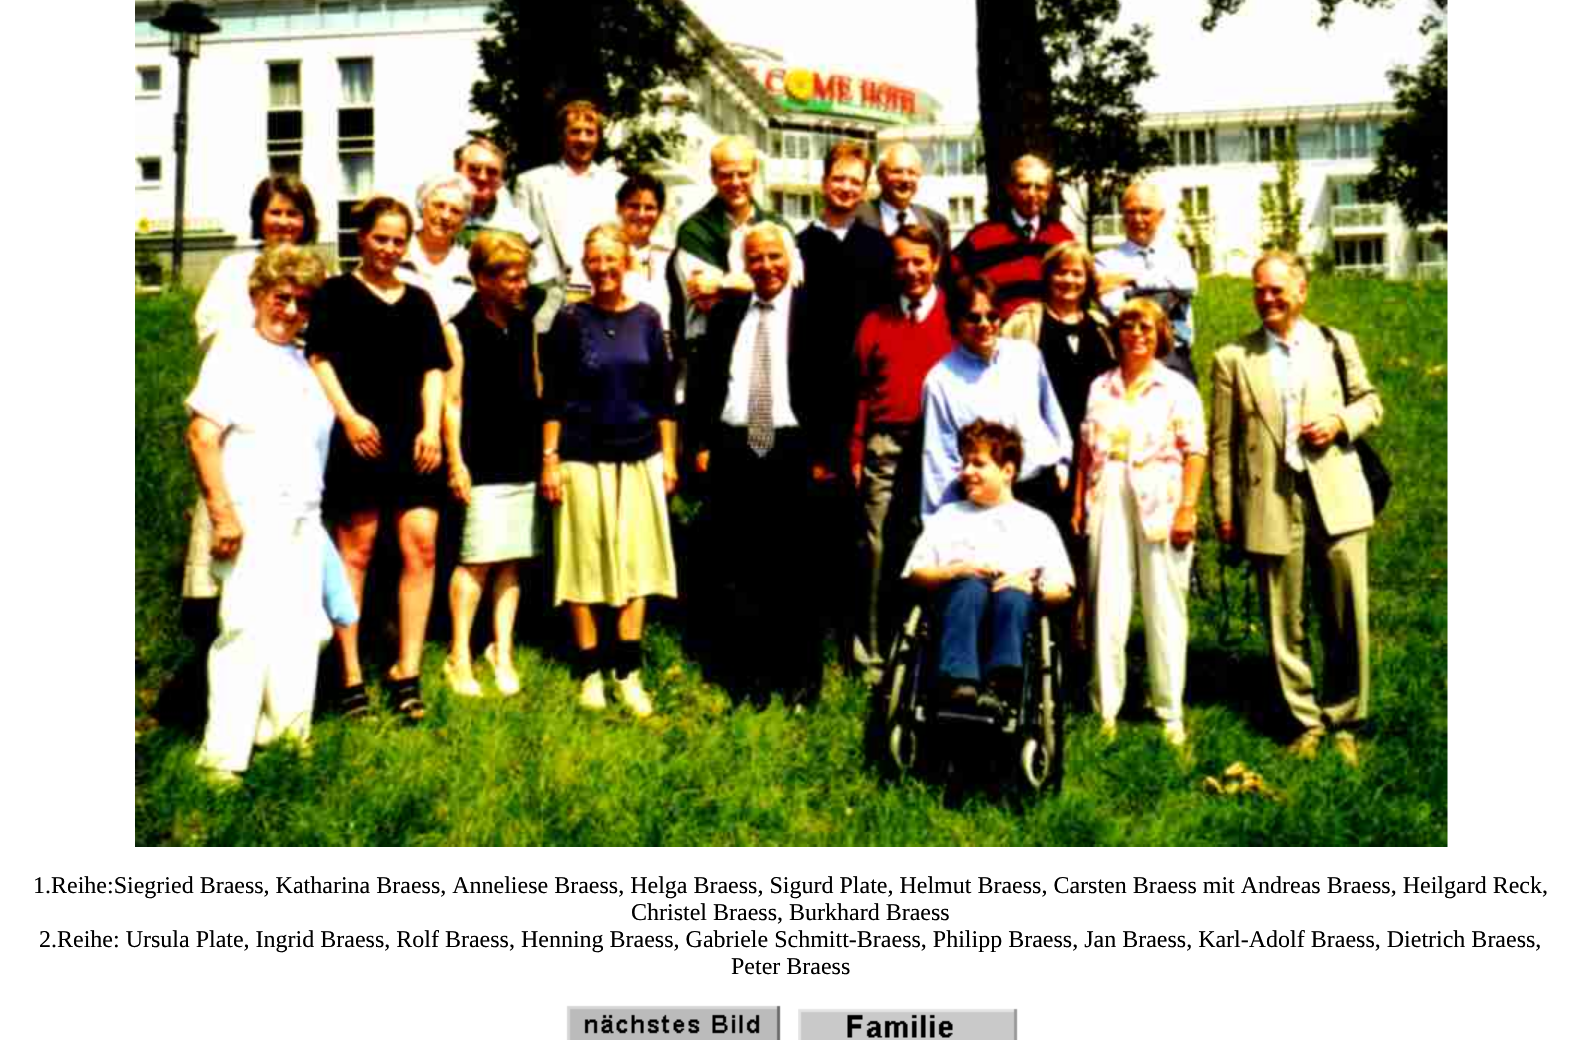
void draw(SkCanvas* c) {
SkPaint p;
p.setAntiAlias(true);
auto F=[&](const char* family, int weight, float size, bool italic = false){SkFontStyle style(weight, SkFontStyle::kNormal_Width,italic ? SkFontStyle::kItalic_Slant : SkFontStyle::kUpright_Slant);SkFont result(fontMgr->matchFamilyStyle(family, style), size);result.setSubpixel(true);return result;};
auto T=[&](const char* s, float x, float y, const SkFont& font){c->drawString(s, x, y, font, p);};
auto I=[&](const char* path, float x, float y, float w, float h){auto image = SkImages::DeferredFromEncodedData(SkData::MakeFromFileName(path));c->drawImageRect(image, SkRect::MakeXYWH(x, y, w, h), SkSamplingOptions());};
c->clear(0xffffffff);
I("1.png",135,0,1313,847);
auto f1 = F("Liberation Serif",400,24);
p.setColor(0xff000000);
T("1.Reihe:Siegried Braess, Katharina Braess, Anneliese Braess, Helga Braess, Sigurd Plate, Helmut Braess, Carsten Braess mit Andreas Braess, Heilgard Reck,",33,893,f1);
T("Christel Braess, Burkhard Braess",631,920,f1);
T("2.Reihe: Ursula Plate, Ingrid Braess, Rolf Braess, Henning Braess, Gabriele Schmitt-Braess, Philipp Braess, Jan Braess, Karl-Adolf Braess, Dietrich Braess,",39,947,f1);
T("Peter Braess",731,974,f1);
I("2.png",566,1005,215,35);
I("3.png",798,1008,220,32);
}
